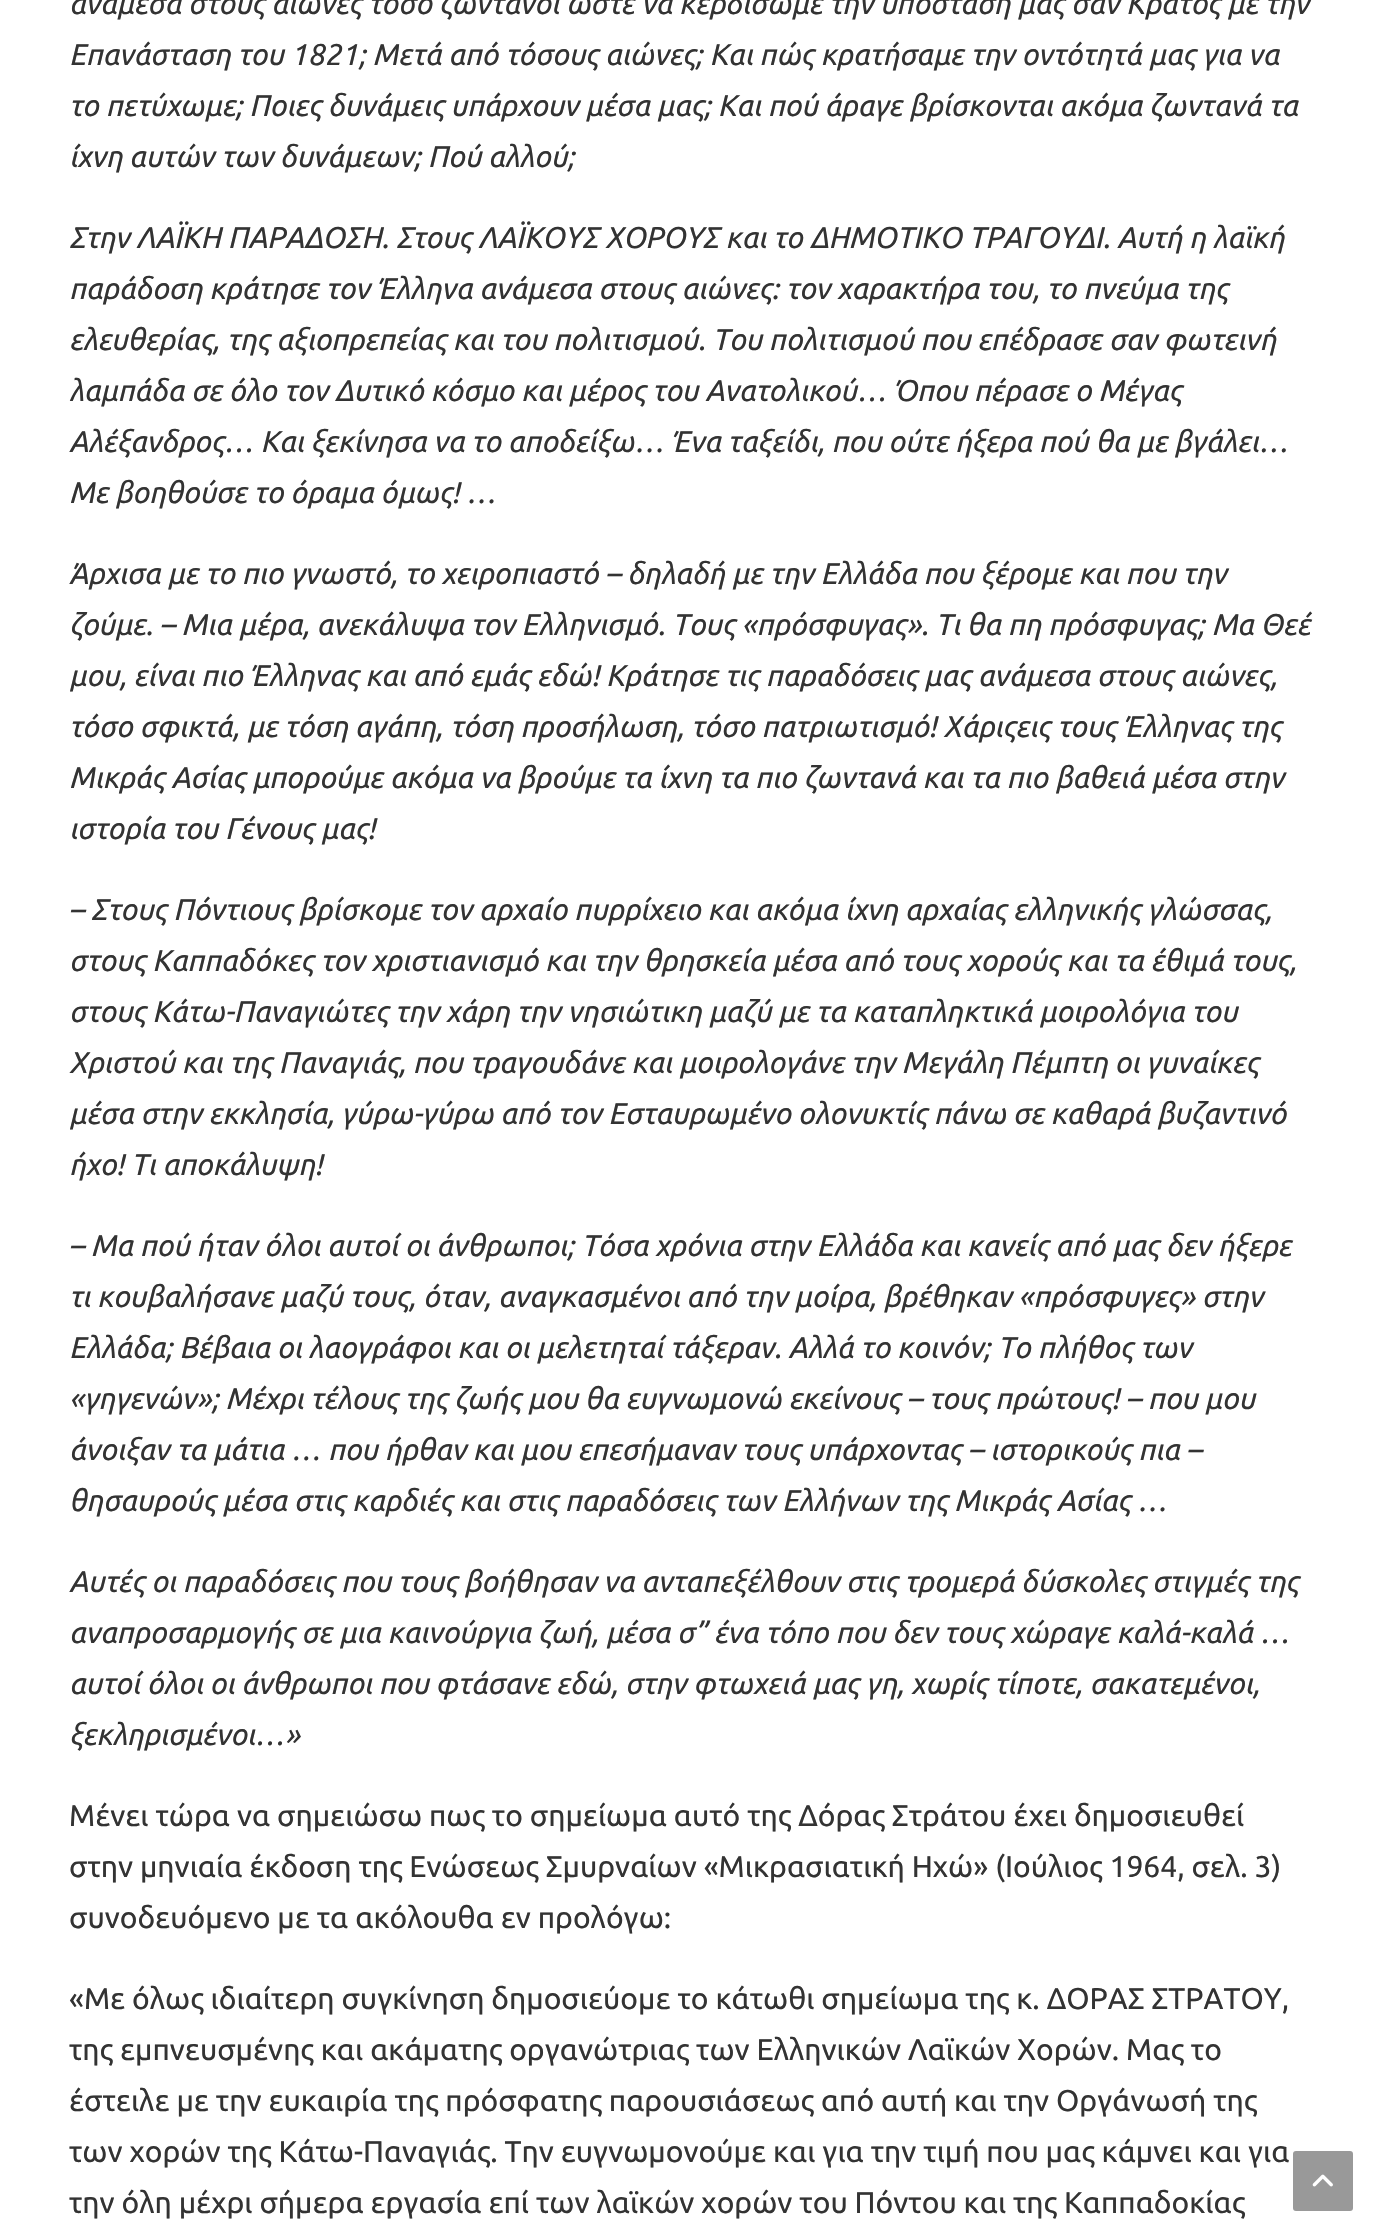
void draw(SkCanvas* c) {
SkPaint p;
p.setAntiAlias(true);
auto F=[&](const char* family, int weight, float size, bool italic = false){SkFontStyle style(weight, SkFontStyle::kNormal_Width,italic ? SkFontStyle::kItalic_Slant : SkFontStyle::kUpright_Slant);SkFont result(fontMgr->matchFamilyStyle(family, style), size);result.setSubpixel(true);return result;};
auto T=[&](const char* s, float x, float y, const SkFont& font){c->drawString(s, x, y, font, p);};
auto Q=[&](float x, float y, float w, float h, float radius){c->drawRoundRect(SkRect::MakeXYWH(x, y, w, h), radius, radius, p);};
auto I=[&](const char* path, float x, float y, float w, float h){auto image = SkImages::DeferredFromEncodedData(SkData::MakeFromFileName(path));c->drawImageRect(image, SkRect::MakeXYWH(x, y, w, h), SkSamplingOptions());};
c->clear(0xffffffff);
auto f1 = F("Ubuntu",400,30,true);
p.setColor(0xff333333);
T("ανάμεσα στους αιώνες τόσο ζωντανοί ώστε να κερδίσωμε την υπόστασή μας σαν Κράτος με την",69,14,f1);
T("Επανάσταση του 1821; Μετά από τόσους αιώνες; Και πώς κρατήσαμε την οντότητά μας για να",69,65,f1);
T("το πετύχωμε; Ποιες δυνάμεις υπάρχουν μέσα μας; Και πού άραγε βρίσκονται ακόμα ζωντανά τα",69,116,f1);
T("ίχνη αυτών των δυνάμεων; Πού αλλού;",69,167,f1);
T("Στην ΛΑΪΚΗ ΠΑΡΑΔΟΣΗ. Στους ΛΑΪΚΟΥΣ ΧΟΡΟΥΣ και το ΔΗΜΟΤΙΚΟ ΤΡΑΓΟΥΔΙ. Αυτή η λαϊκή",69,248,f1);
T("παράδοση κράτησε τον Έλληνα ανάμεσα στους αιώνες: τον χαρακτήρα του, το πνεύμα της",69,299,f1);
T("ελευθερίας, της αξιοπρεπείας και του πολιτισμού. Του πολιτισμού που επέδρασε σαν φωτεινή",69,350,f1);
T("λαμπάδα σε όλο τον Δυτικό κόσμο και μέρος του Ανατολικού… Όπου πέρασε ο Μέγας",69,401,f1);
T("Αλέξανδρος… Και ξεκίνησα να το αποδείξω… Ένα ταξείδι, που ούτε ήξερα πού θα με βγάλει…",69,452,f1);
T("Με βοηθούσε το όραμα όμως! …",69,503,f1);
T("Άρχισα με το πιο γνωστό, το χειροπιαστό – δηλαδή με την Ελλάδα που ξέρομε και που την",69,584,f1);
T("ζούμε. – Μια μέρα, ανεκάλυψα τον Ελληνισμό. Τους «πρόσφυγας». Τι θα πη πρόσφυγας; Μα Θεέ",69,635,f1);
T("μου, είναι πιο Έλληνας και από εμάς εδώ! Κράτησε τις παραδόσεις μας ανάμεσα στους αιώνες,",69,686,f1);
T("τόσο σφικτά, με τόση αγάπη, τόση προσήλωση, τόσο πατριωτισμό! Χάριςεις τους Έλληνας της",69,737,f1);
T("Μικράς Ασίας μπορούμε ακόμα να βρούμε τα ίχνη τα πιο ζωντανά και τα πιο βαθειά μέσα στην",69,788,f1);
T("ιστορία του Γένους μας!",69,839,f1);
T("– Στους Πόντιους βρίσκομε τον αρχαίο πυρρίχειο και ακόμα ίχνη αρχαίας ελληνικής γλώσσας,",69,920,f1);
T("στους Καππαδόκες τον χριστιανισμό και την θρησκεία μέσα από τους χορούς και τα έθιμά τους,",69,971,f1);
T("στους Κάτω-Παναγιώτες την χάρη την νησιώτικη μαζύ με τα καταπληκτικά μοιρολόγια του",69,1022,f1);
T("Χριστού και της Παναγιάς, που τραγουδάνε και μοιρολογάνε την Μεγάλη Πέμπτη οι γυναίκες",69,1073,f1);
T("μέσα στην εκκλησία, γύρω-γύρω από τον Εσταυρωμένο ολονυκτίς πάνω σε καθαρά βυζαντινό",69,1124,f1);
T("ήχο! Τι αποκάλυψη!",69,1175,f1);
T("– Μα πού ήταν όλοι αυτοί οι άνθρωποι; Τόσα χρόνια στην Ελλάδα και κανείς από μας δεν ήξερε",69,1256,f1);
T("τι κουβαλήσανε μαζύ τους, όταν, αναγκασμένοι από την μοίρα, βρέθηκαν «πρόσφυγες» στην",69,1307,f1);
T("Ελλάδα; Βέβαια οι λαογράφοι και οι μελετηταί τάξεραν. Αλλά το κοινόν; Το πλήθος των",69,1358,f1);
T("«γηγενών»; Μέχρι τέλους της ζωής μου θα ευγνωμονώ εκείνους – τους πρώτους! – που μου",69,1409,f1);
T("άνοιξαν τα μάτια … που ήρθαν και μου επεσήμαναν τους υπάρχοντας – ιστορικούς πια –",69,1460,f1);
T("θησαυρούς μέσα στις καρδιές και στις παραδόσεις των Ελλήνων της Μικράς Ασίας …",69,1511,f1);
T("Αυτές οι παραδόσεις που τους βοήθησαν να ανταπεξέλθουν στις τρομερά δύσκολες στιγμές της",69,1592,f1);
T("αναπροσαρμογής σε μια καινούργια ζωή, μέσα σ” ένα τόπο που δεν τους χώραγε καλά-καλά …",69,1643,f1);
T("αυτοί όλοι οι άνθρωποι που φτάσανε εδώ, στην φτωχειά μας γη, χωρίς τίποτε, σακατεμένοι,",69,1694,f1);
T("ξεκληρισμένοι…»",69,1745,f1);
auto f2 = F("Ubuntu",400,30);
T("Μένει τώρα να σημειώσω πως το σημείωμα αυτό της Δόρας Στράτου έχει δημοσιευθεί",69,1826,f2);
T("στην μηνιαία έκδοση της Ενώσεως Σμυρναίων «Μικρασιατική Ηχώ» (Ιούλιος 1964, σελ. 3)",69,1877,f2);
T("συνοδευόμενο με τα ακόλουθα εν προλόγω:",69,1928,f2);
T("«Με όλως ιδιαίτερη συγκίνηση δημοσιεύομε το κάτωθι σημείωμα της κ. ΔΟΡΑΣ ΣΤΡΑΤΟΥ,",69,2009,f2);
T("της εμπνευσμένης και ακάματης οργανώτριας των Ελληνικών Λαϊκών Χορών. Μας το",69,2060,f2);
T("έστειλε με την ευκαιρία της πρόσφατης παρουσιάσεως από αυτή και την Οργάνωσή της",69,2111,f2);
T("των χορών της Κάτω-Παναγιάς. Την ευγνωμονούμε και για την τιμή που μας κάμνει και για",69,2162,f2);
T("την όλη μέχρι σήμερα εργασία επί των λαϊκών χορών του Πόντου και της Καππαδοκίας",69,2213,f2);
p.setColor(0xff999999);
Q(1293,2151,60,60,3);
I("1.png",1312,2174,21,13);
}
